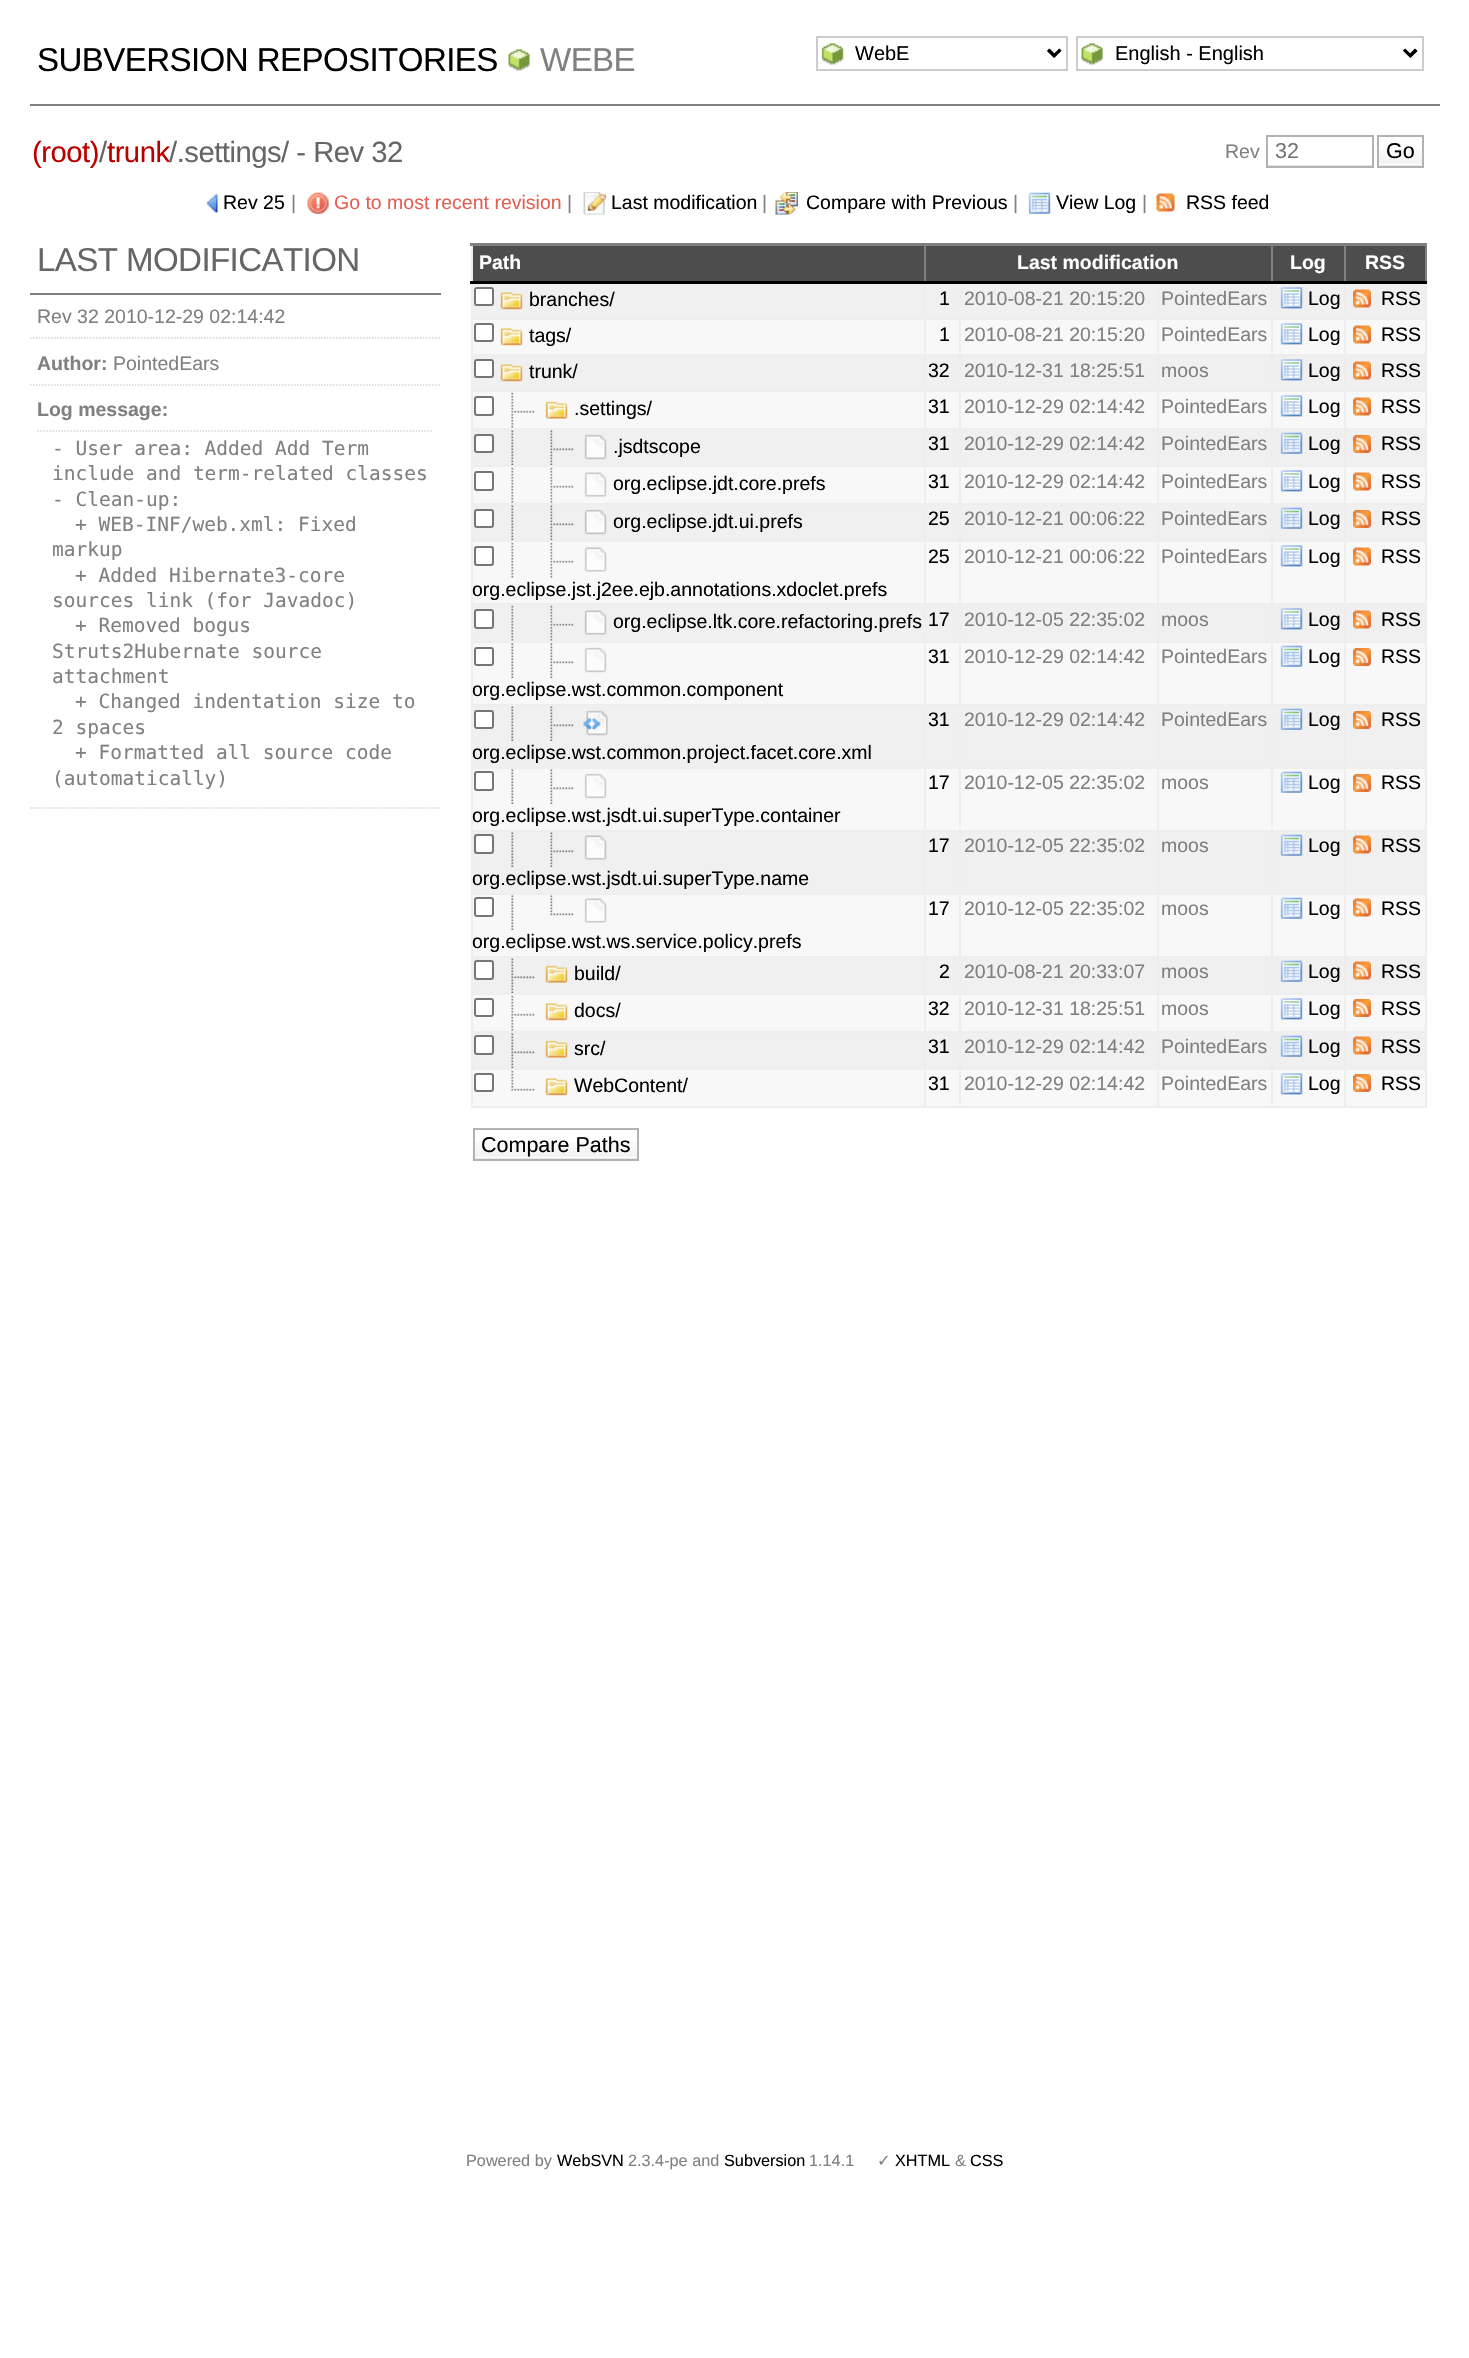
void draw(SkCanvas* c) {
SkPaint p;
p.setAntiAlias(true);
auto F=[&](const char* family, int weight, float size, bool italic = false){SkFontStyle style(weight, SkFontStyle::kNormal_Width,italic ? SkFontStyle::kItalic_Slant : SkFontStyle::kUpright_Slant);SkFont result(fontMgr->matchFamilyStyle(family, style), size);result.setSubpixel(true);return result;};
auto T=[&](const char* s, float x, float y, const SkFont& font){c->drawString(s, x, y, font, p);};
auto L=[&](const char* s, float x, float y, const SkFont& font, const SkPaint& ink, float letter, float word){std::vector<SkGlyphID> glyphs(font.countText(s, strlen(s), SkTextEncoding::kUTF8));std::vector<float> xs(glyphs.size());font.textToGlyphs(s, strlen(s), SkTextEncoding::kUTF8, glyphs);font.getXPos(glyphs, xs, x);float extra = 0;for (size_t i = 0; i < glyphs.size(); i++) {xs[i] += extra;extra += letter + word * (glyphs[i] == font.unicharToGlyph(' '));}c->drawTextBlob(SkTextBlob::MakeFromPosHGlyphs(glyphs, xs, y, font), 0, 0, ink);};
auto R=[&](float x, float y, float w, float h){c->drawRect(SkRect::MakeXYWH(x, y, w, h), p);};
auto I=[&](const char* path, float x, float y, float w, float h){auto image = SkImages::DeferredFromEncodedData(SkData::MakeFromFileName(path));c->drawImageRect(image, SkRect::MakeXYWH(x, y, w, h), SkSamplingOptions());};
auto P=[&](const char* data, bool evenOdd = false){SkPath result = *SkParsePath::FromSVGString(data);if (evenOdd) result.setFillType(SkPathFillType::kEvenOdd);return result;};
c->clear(0xffffffff);
p.setColor(0xff808080);
R(30,104,1410,2);
auto f1 = F("Liberation Sans",400,33.1);
p.setColor(0xff000000);
L("SUBVERSION REPOSITORIES",37,71,f1,p,-.6,0);
I("1.png",508,49,22,22);
p.setColor(0xff808080);
L("WEBE",540,71,f1,p,-.6,0);
I("2.png",821,43,241,22);
p.setStroke(true);
p.setStrokeWidth(2);
p.setColor(0xffcccccc);
c->drawRect(SkRect::MakeXYWH(817,37,250,33),p);
p.setStrokeWidth(3);
p.setColor(0xff000000);
c->drawPath(P("M1048 50l6 6l6-6"),p);
auto f2 = F("Liberation Sans",400,20);
p.setStroke(false);
T("WebE",855,60,f2);
I("3.png",1081,43,336,22);
p.setStroke(true);
p.setStrokeWidth(2);
p.setColor(0xffcccccc);
c->drawRect(SkRect::MakeXYWH(1077,37,346,33),p);
p.setStrokeWidth(3);
p.setColor(0xff000000);
c->drawPath(P("M1404.5 50l6 6l6-6"),p);
p.setStroke(false);
T("English - English",1115,60,f2);
auto f3 = F("Liberation Sans",400,29.25);
p.setColor(0xffbb0000);
L("(root)",32,162,f3,p,-.5,0);
p.setColor(0xff666666);
L("/",99,162,f3,p,-.5,0);
p.setColor(0xffffffff);
R(107,140,1,2);
p.setColor(0xffbb0000);
L("trunk",107,162,f3,p,-.5,0);
p.setColor(0xff666666);
L("/.settings/ - Rev 32",169,162,f3,p,-.5,0);
auto f4 = F("Liberation Sans",400,19.5);
p.setColor(0xff808080);
T("Rev",1225,158,f4);
p.setColor(0xffe6e6e6);
R(1266,165,108,1);
p.setStroke(true);
p.setStrokeWidth(2);
p.setColor(0xffb2b2b2);
c->drawRect(SkRect::MakeXYWH(1267,136,106,31),p);
auto f5 = F("Liberation Sans",400,21.5);
p.setStroke(false);
p.setColor(0xff757575);
T("32",1275,158,f5);
I("4.png",1379,149,43,17);
p.setStroke(true);
p.setColor(0xffb2b2b2);
c->drawRect(SkRect::MakeXYWH(1378,136,45,31),p);
p.setStroke(false);
p.setColor(0xff000000);
T("Go",1386,158,f5);
I("5.png",206,194,12,19);
T("Rev 25",223,209,f4);
p.setColor(0xff808080);
T("|",291,209,f4);
I("6.png",307,192,22,22);
p.setColor(0xffe25f53);
T("Go to most recent revision",334,209,f4);
p.setColor(0xff808080);
T("|",567,209,f4);
I("7.png",583,192,23,23);
p.setColor(0xff000000);
T("Last modification",611,209,f4);
p.setColor(0xff808080);
T("|",762,209,f4);
I("8.png",775,192,23,23);
p.setColor(0xff000000);
T("Compare with Previous",806,209,f4);
p.setColor(0xff808080);
T("|",1013,209,f4);
I("9.png",1028,192,23,22);
p.setColor(0xff000000);
T("View Log",1056,209,f4);
p.setColor(0xff808080);
T("|",1142,209,f4);
I("10.png",1156,193,19,19);
p.setColor(0xff000000);
T("RSS feed",1186,209,f4);
p.setColor(0xff808080);
R(30,293,411,2);
p.setColor(0xff666666);
L("LAST MODIFICATION",37,271,f1,p,-.6,0);
p.setStroke(true);
p.setStrokeWidth(1.5);
p.setColor(0xffd3d3d3);
p.setPathEffect(SkDashPathEffect::Make({{1.5f,1.5f}}, 0));
c->drawPath(P("M30 338h411"),p);
p.setPathEffect(nullptr);
p.setStroke(false);
p.setColor(0xff808080);
T("Rev 32 2010-12-29 02:14:42",37,323,f4);
p.setStroke(true);
p.setColor(0xffd3d3d3);
p.setPathEffect(SkDashPathEffect::Make({{1.5f,1.5f}}, 0));
c->drawPath(P("M30 385h411"),p);
p.setPathEffect(nullptr);
auto f6 = F("Liberation Sans",700,19.5);
p.setStroke(false);
p.setColor(0xff808080);
T("Author:",37,370,f6);
T("PointedEars",113,370,f4);
p.setStroke(true);
p.setColor(0xffd3d3d3);
p.setPathEffect(SkDashPathEffect::Make({{1.5f,1.5f}}, 0));
c->drawPath(P("M30 808h411"),p);
p.setPathEffect(nullptr);
p.setStroke(false);
p.setColor(0xff808080);
T("Log message:",37,416,f6);
p.setStroke(true);
p.setColor(0xffd3d3d3);
p.setPathEffect(SkDashPathEffect::Make({{1.5f,1.5f}}, 0));
c->drawPath(P("M37.5 431h396"),p);
p.setPathEffect(nullptr);
auto f7 = F("DejaVu Sans Mono",400,19.5);
p.setStroke(false);
p.setColor(0xff808080);
T("- User area: Added Add Term",52,455,f7);
T("include and term-related classes",52,480,f7);
T("- Clean-up:",52,506,f7);
T("+ WEB-INF/web.xml: Fixed",75,531,f7);
T("markup",52,556,f7);
T("+ Added Hibernate3-core",75,582,f7);
T("sources link (for Javadoc)",52,607,f7);
T("+ Removed bogus",75,632,f7);
T("Struts2Hubernate source",52,658,f7);
T("attachment",52,683,f7);
T("+ Changed indentation size to",75,708,f7);
T("2 spaces",52,734,f7);
T("+ Formatted all source code",75,759,f7);
T("(automatically)",52,785,f7);
p.setColor(0xff4d4d4d);
R(473,246,952,35);
p.setColor(0xffeeeeee);
R(1344,318,83,2);
R(1344,354,83,2);
R(1344,390,83,2);
R(1344,428,83,2);
R(1344,465,83,2);
R(1344,503,83,2);
R(1344,540,83,2);
R(1344,603,83,2);
R(1344,641,83,2);
R(1344,704,83,2);
R(1344,767,83,2);
R(1344,830,83,2);
R(1344,893,83,2);
R(1344,956,83,2);
R(1344,993,83,2);
R(1344,1031,83,2);
R(1344,1068,83,2);
R(1425,1068,2,39);
R(1344,1106,83,2);
R(1344,1068,2,39);
R(1271,1068,75,2);
R(1344,1031,2,39);
R(1271,1031,75,2);
R(1344,993,2,39);
R(1271,993,75,2);
R(1344,956,2,39);
R(1271,956,75,2);
R(1344,893,2,64);
R(1271,893,75,2);
R(1344,830,2,64);
R(1271,830,75,2);
R(1344,767,2,64);
R(1271,767,75,2);
R(1344,704,2,64);
R(1271,704,75,2);
R(1344,641,2,64);
R(1271,641,75,2);
R(1344,603,2,39);
R(1271,603,75,2);
R(1344,540,2,65);
R(1271,540,75,2);
R(1344,503,2,39);
R(1271,503,75,2);
R(1344,465,2,39);
R(1271,465,75,2);
R(1344,428,2,39);
R(1271,428,75,2);
R(1344,390,2,39);
R(1271,390,75,2);
R(1344,354,2,38);
R(1271,354,75,2);
R(1344,318,2,38);
R(1271,318,75,2);
R(1271,1106,75,2);
R(1271,1068,2,39);
R(1157,1068,115,2);
R(1271,1031,2,39);
R(1157,1031,115,2);
R(1271,993,2,39);
R(1157,993,115,2);
R(1271,956,2,39);
R(1157,956,115,2);
R(1271,893,2,64);
R(1157,893,115,2);
R(1271,830,2,64);
R(1157,830,115,2);
R(1271,767,2,64);
R(1157,767,115,2);
R(1271,704,2,64);
R(1157,704,115,2);
R(1271,641,2,64);
R(1157,641,115,2);
R(1271,603,2,39);
R(1157,603,115,2);
R(1271,540,2,65);
R(1157,540,115,2);
R(1271,503,2,39);
R(1157,503,115,2);
R(1271,465,2,39);
R(1157,465,115,2);
R(1271,428,2,39);
R(1157,428,115,2);
R(1271,390,2,39);
R(1157,390,115,2);
R(1271,354,2,38);
R(1157,354,115,2);
R(1271,318,2,38);
R(1157,318,115,2);
R(1157,1106,115,2);
R(1157,1068,2,39);
R(959,1068,199,2);
R(1157,1031,2,39);
R(959,1031,199,2);
R(1157,993,2,39);
R(959,993,199,2);
R(1157,956,2,39);
R(959,956,199,2);
R(1157,893,2,64);
R(959,893,199,2);
R(1157,830,2,64);
R(959,830,199,2);
R(1157,767,2,64);
R(959,767,199,2);
R(1157,704,2,64);
R(959,704,199,2);
R(1157,641,2,64);
R(959,641,199,2);
R(1157,603,2,39);
R(959,603,199,2);
R(1157,540,2,65);
R(959,540,199,2);
R(1157,503,2,39);
R(959,503,199,2);
R(1157,465,2,39);
R(959,465,199,2);
R(1157,428,2,39);
R(959,428,199,2);
R(1157,390,2,39);
R(959,390,199,2);
R(1157,354,2,38);
R(959,354,199,2);
R(1157,318,2,38);
R(959,318,199,2);
R(959,1106,199,2);
R(959,1068,2,39);
R(924,1068,36,2);
R(959,1031,2,39);
R(924,1031,36,2);
R(959,993,2,39);
R(924,993,36,2);
R(959,956,2,39);
R(924,956,36,2);
R(959,893,2,64);
R(924,893,36,2);
R(959,830,2,64);
R(924,830,36,2);
R(959,767,2,64);
R(924,767,36,2);
R(959,704,2,64);
R(924,704,36,2);
R(959,641,2,64);
R(924,641,36,2);
R(959,603,2,39);
R(924,603,36,2);
R(959,540,2,65);
R(924,540,36,2);
R(959,503,2,39);
R(924,503,36,2);
R(959,465,2,39);
R(924,465,36,2);
R(959,428,2,39);
R(924,428,36,2);
R(959,390,2,39);
R(924,390,36,2);
R(959,354,2,38);
R(924,354,36,2);
R(959,318,2,38);
R(924,318,36,2);
R(924,1106,36,2);
R(924,1068,2,39);
R(471,1068,455,2);
R(924,1031,2,39);
R(471,1031,455,2);
R(924,993,2,39);
R(471,993,455,2);
R(924,956,2,39);
R(471,956,455,2);
R(924,893,2,64);
R(471,893,455,2);
R(924,830,2,64);
R(471,830,455,2);
R(924,767,2,64);
R(471,767,455,2);
R(924,704,2,64);
R(471,704,455,2);
R(924,641,2,64);
R(471,641,455,2);
R(924,603,2,39);
R(471,603,455,2);
R(924,540,2,65);
R(471,540,455,2);
R(924,503,2,39);
R(471,503,455,2);
R(924,465,2,39);
R(471,465,455,2);
R(924,428,2,39);
R(471,428,455,2);
R(924,390,2,39);
R(471,390,455,2);
R(924,354,2,38);
R(471,354,455,2);
R(924,318,2,38);
R(471,318,455,2);
R(924,282,2,38);
p.setColor(0xff808080);
R(924,245,2,39);
p.setColor(0xffffffff);
T("Path",479,269,f6);
p.setColor(0xffeeeeee);
R(1271,282,2,38);
p.setColor(0xff808080);
R(1271,245,2,39);
p.setColor(0xffffffff);
T("Last modification",1017,269,f6);
p.setColor(0xffeeeeee);
R(1344,282,2,38);
p.setColor(0xff808080);
R(1344,245,2,39);
p.setColor(0xffffffff);
T("Log",1290,269,f6);
p.setColor(0xffeeeeee);
R(1425,1031,2,39);
R(1425,993,2,39);
R(1425,956,2,39);
R(1425,893,2,64);
R(1425,830,2,64);
R(1425,767,2,64);
R(1425,704,2,64);
R(1425,641,2,64);
R(1425,603,2,39);
R(1425,540,2,65);
R(1425,503,2,39);
R(1425,465,2,39);
R(1425,428,2,39);
R(1425,390,2,39);
R(1425,354,2,38);
R(1425,282,2,74);
p.setColor(0xff808080);
R(1425,245,2,39);
p.setColor(0xffeeeeee);
R(471,1106,455,2);
R(471,1068,2,39);
R(471,1031,2,39);
R(471,993,2,39);
R(471,956,2,39);
R(471,893,2,64);
R(471,830,2,64);
R(471,767,2,64);
R(471,704,2,64);
R(471,641,2,64);
R(471,603,2,39);
R(471,540,2,65);
R(471,503,2,39);
R(471,465,2,39);
R(471,428,2,39);
R(471,390,2,39);
R(471,354,2,38);
R(471,245,2,111);
p.setColor(0xff808080);
R(470,243,957,3);
p.setColor(0xffeeeeee);
R(959,282,2,38);
R(1157,282,2,38);
p.setColor(0xff000000);
R(470,281,957,3);
p.setColor(0xffffffff);
T("RSS",1365,269,f6);
p.setColor(0xfff0f0f0);
R(473,284,451,34);
p.setColor(0xffffffff);
c->drawRoundRect(SkRect::MakeXYWH(475,288,18,17),2,2,p);
p.setStroke(true);
p.setStrokeWidth(2);
p.setColor(0xff767676);
c->drawRoundRect(SkRect::MakeXYWH(475,288,18,17),2,2,p);
I("11.png",500,292,23,18);
p.setStroke(false);
p.setColor(0xff000000);
T("branches/",529,306,f4);
p.setColor(0xfff0f0f0);
R(926,284,33,34);
p.setColor(0xff000000);
T("1",939,305,f4);
p.setColor(0xfff0f0f0);
R(961,284,196,34);
p.setColor(0xff808080);
T("2010-08-21 20:15:20",964,305,f4);
p.setColor(0xfff0f0f0);
R(1159,284,112,34);
p.setColor(0xff808080);
T("PointedEars",1161,305,f4);
p.setColor(0xfff0f0f0);
R(1273,284,71,34);
I("12.png",1280,287,23,22);
p.setColor(0xff000000);
T("Log",1308,305,f4);
p.setColor(0xfff0f0f0);
R(1346,284,79,34);
I("13.png",1353,289,18,19);
p.setColor(0xff000000);
T("RSS",1381,305,f4);
p.setColor(0xfff8f8f8);
R(473,320,451,34);
p.setColor(0xffffffff);
c->drawRoundRect(SkRect::MakeXYWH(475,324,18,17),2,2,p);
p.setStroke(true);
p.setColor(0xff767676);
c->drawRoundRect(SkRect::MakeXYWH(475,324,18,17),2,2,p);
I("14.png",500,328,23,18);
p.setStroke(false);
p.setColor(0xff000000);
T("tags/",529,342,f4);
p.setColor(0xfff8f8f8);
R(926,320,33,34);
p.setColor(0xff000000);
T("1",939,341,f4);
p.setColor(0xfff8f8f8);
R(961,320,196,34);
p.setColor(0xff808080);
T("2010-08-21 20:15:20",964,341,f4);
p.setColor(0xfff8f8f8);
R(1159,320,112,34);
p.setColor(0xff808080);
T("PointedEars",1161,341,f4);
p.setColor(0xfff8f8f8);
R(1273,320,71,34);
I("15.png",1280,323,23,22);
p.setColor(0xff000000);
T("Log",1308,341,f4);
p.setColor(0xfff8f8f8);
R(1346,320,79,34);
I("16.png",1353,325,18,19);
p.setColor(0xff000000);
T("RSS",1381,341,f4);
p.setColor(0xfff0f0f0);
R(473,356,451,34);
p.setColor(0xffffffff);
c->drawRoundRect(SkRect::MakeXYWH(475,360,18,17),2,2,p);
p.setStroke(true);
p.setColor(0xff767676);
c->drawRoundRect(SkRect::MakeXYWH(475,360,18,17),2,2,p);
I("11.png",500,364,23,18);
p.setStroke(false);
p.setColor(0xff000000);
T("trunk/",529,378,f4);
p.setColor(0xfff0f0f0);
R(926,356,33,34);
p.setColor(0xff000000);
T("32",928,377,f4);
p.setColor(0xfff0f0f0);
R(961,356,196,34);
p.setColor(0xff808080);
T("2010-12-31 18:25:51",964,377,f4);
p.setColor(0xfff0f0f0);
R(1159,356,112,34);
p.setColor(0xff808080);
T("moos",1161,377,f4);
p.setColor(0xfff0f0f0);
R(1273,356,71,34);
I("12.png",1280,359,23,22);
p.setColor(0xff000000);
T("Log",1308,377,f4);
p.setColor(0xfff0f0f0);
R(1346,356,79,34);
I("13.png",1353,361,18,19);
p.setColor(0xff000000);
T("RSS",1381,377,f4);
p.setColor(0xfff8f8f8);
R(473,392,451,36);
p.setColor(0xffffffff);
c->drawRoundRect(SkRect::MakeXYWH(475,397,18,18),2,2,p);
p.setStroke(true);
p.setColor(0xff767676);
c->drawRoundRect(SkRect::MakeXYWH(475,397,18,18),2,2,p);
I("17.png",511,392,24,36);
I("18.png",545,401,23,18);
p.setStroke(false);
p.setColor(0xff000000);
T(".settings/",574,415,f4);
p.setColor(0xfff8f8f8);
R(926,392,33,36);
p.setColor(0xff000000);
T("31",928,413,f4);
p.setColor(0xfff8f8f8);
R(961,392,196,36);
p.setColor(0xff808080);
T("2010-12-29 02:14:42",964,413,f4);
p.setColor(0xfff8f8f8);
R(1159,392,112,36);
p.setColor(0xff808080);
T("PointedEars",1161,413,f4);
p.setColor(0xfff8f8f8);
R(1273,392,71,36);
I("15.png",1280,395,23,22);
p.setColor(0xff000000);
T("Log",1308,413,f4);
p.setColor(0xfff8f8f8);
R(1346,392,79,36);
I("16.png",1353,397,18,19);
p.setColor(0xff000000);
T("RSS",1381,413,f4);
p.setColor(0xfff0f0f0);
R(473,430,451,35);
p.setColor(0xffffffff);
c->drawRoundRect(SkRect::MakeXYWH(475,435,18,17),2,2,p);
p.setStroke(true);
p.setColor(0xff767676);
c->drawRoundRect(SkRect::MakeXYWH(475,435,18,17),2,2,p);
I("19.png",511,430,3,35);
I("20.png",550,430,24,35);
I("21.png",584,434,23,26);
p.setStroke(false);
p.setColor(0xff000000);
T(".jsdtscope",613,453,f4);
p.setColor(0xfff0f0f0);
R(926,430,33,35);
p.setColor(0xff000000);
T("31",928,450,f4);
p.setColor(0xfff0f0f0);
R(961,430,196,35);
p.setColor(0xff808080);
T("2010-12-29 02:14:42",964,450,f4);
p.setColor(0xfff0f0f0);
R(1159,430,112,35);
p.setColor(0xff808080);
T("PointedEars",1161,450,f4);
p.setColor(0xfff0f0f0);
R(1273,430,71,35);
I("22.png",1280,432,23,22);
p.setColor(0xff000000);
T("Log",1308,450,f4);
p.setColor(0xfff0f0f0);
R(1346,430,79,35);
I("23.png",1353,435,18,18);
p.setColor(0xff000000);
T("RSS",1381,450,f4);
p.setColor(0xfff8f8f8);
R(473,467,451,36);
p.setColor(0xffffffff);
c->drawRoundRect(SkRect::MakeXYWH(475,472,18,18),2,2,p);
p.setStroke(true);
p.setColor(0xff767676);
c->drawRoundRect(SkRect::MakeXYWH(475,472,18,18),2,2,p);
I("24.png",511,467,3,36);
I("25.png",550,467,24,36);
I("26.png",584,472,23,25);
p.setStroke(false);
p.setColor(0xff000000);
T("org.eclipse.jdt.core.prefs",613,490,f4);
p.setColor(0xfff8f8f8);
R(926,467,33,36);
p.setColor(0xff000000);
T("31",928,488,f4);
p.setColor(0xfff8f8f8);
R(961,467,196,36);
p.setColor(0xff808080);
T("2010-12-29 02:14:42",964,488,f4);
p.setColor(0xfff8f8f8);
R(1159,467,112,36);
p.setColor(0xff808080);
T("PointedEars",1161,488,f4);
p.setColor(0xfff8f8f8);
R(1273,467,71,36);
I("15.png",1280,470,23,22);
p.setColor(0xff000000);
T("Log",1308,488,f4);
p.setColor(0xfff8f8f8);
R(1346,467,79,36);
I("16.png",1353,472,18,19);
p.setColor(0xff000000);
T("RSS",1381,488,f4);
p.setColor(0xfff0f0f0);
R(473,505,451,35);
p.setColor(0xffffffff);
c->drawRoundRect(SkRect::MakeXYWH(475,510,18,17),2,2,p);
p.setStroke(true);
p.setColor(0xff767676);
c->drawRoundRect(SkRect::MakeXYWH(475,510,18,17),2,2,p);
I("19.png",511,505,3,35);
I("20.png",550,505,24,35);
I("21.png",584,509,23,26);
p.setStroke(false);
p.setColor(0xff000000);
T("org.eclipse.jdt.ui.prefs",613,528,f4);
p.setColor(0xfff0f0f0);
R(926,505,33,35);
p.setColor(0xff000000);
T("25",928,525,f4);
p.setColor(0xfff0f0f0);
R(961,505,196,35);
p.setColor(0xff808080);
T("2010-12-21 00:06:22",964,525,f4);
p.setColor(0xfff0f0f0);
R(1159,505,112,35);
p.setColor(0xff808080);
T("PointedEars",1161,525,f4);
p.setColor(0xfff0f0f0);
R(1273,505,71,35);
I("22.png",1280,507,23,22);
p.setColor(0xff000000);
T("Log",1308,525,f4);
p.setColor(0xfff0f0f0);
R(1346,505,79,35);
I("23.png",1353,510,18,18);
p.setColor(0xff000000);
T("RSS",1381,525,f4);
p.setColor(0xfff8f8f8);
R(926,542,33,61);
p.setColor(0xff000000);
T("25",928,563,f4);
p.setColor(0xfff8f8f8);
R(961,542,196,61);
p.setColor(0xff808080);
T("2010-12-21 00:06:22",964,563,f4);
p.setColor(0xfff8f8f8);
R(1159,542,112,61);
p.setColor(0xff808080);
T("PointedEars",1161,563,f4);
p.setColor(0xfff8f8f8);
R(1273,542,71,61);
I("15.png",1280,545,23,22);
p.setColor(0xff000000);
T("Log",1308,563,f4);
p.setColor(0xfff8f8f8);
R(1346,542,79,61);
I("16.png",1353,547,18,19);
p.setColor(0xff000000);
T("RSS",1381,563,f4);
p.setColor(0xfff8f8f8);
R(473,542,451,61);
p.setColor(0xffffffff);
c->drawRoundRect(SkRect::MakeXYWH(475,547,18,18),2,2,p);
p.setStroke(true);
p.setColor(0xff767676);
c->drawRoundRect(SkRect::MakeXYWH(475,547,18,18),2,2,p);
I("24.png",511,542,3,36);
I("25.png",550,542,24,36);
I("26.png",584,547,23,25);
p.setStroke(false);
p.setColor(0xff000000);
T("org.eclipse.jst.j2ee.ejb.annotations.xdoclet.prefs",472,596,f4);
p.setColor(0xfff0f0f0);
R(473,605,451,36);
p.setColor(0xffffffff);
c->drawRoundRect(SkRect::MakeXYWH(475,610,18,18),2,2,p);
p.setStroke(true);
p.setColor(0xff767676);
c->drawRoundRect(SkRect::MakeXYWH(475,610,18,18),2,2,p);
I("27.png",511,605,3,36);
I("28.png",550,605,24,36);
I("29.png",584,610,23,25);
p.setStroke(false);
p.setColor(0xff000000);
T("org.eclipse.ltk.core.refactoring.prefs",613,628,f4);
p.setColor(0xfff0f0f0);
R(926,605,33,36);
p.setColor(0xff000000);
T("17",928,626,f4);
p.setColor(0xfff0f0f0);
R(961,605,196,36);
p.setColor(0xff808080);
T("2010-12-05 22:35:02",964,626,f4);
p.setColor(0xfff0f0f0);
R(1159,605,112,36);
p.setColor(0xff808080);
T("moos",1161,626,f4);
p.setColor(0xfff0f0f0);
R(1273,605,71,36);
I("12.png",1280,608,23,22);
p.setColor(0xff000000);
T("Log",1308,626,f4);
p.setColor(0xfff0f0f0);
R(1346,605,79,36);
I("13.png",1353,610,18,19);
p.setColor(0xff000000);
T("RSS",1381,626,f4);
p.setColor(0xfff8f8f8);
R(926,643,33,61);
p.setColor(0xff000000);
T("31",928,663,f4);
p.setColor(0xfff8f8f8);
R(961,643,196,61);
p.setColor(0xff808080);
T("2010-12-29 02:14:42",964,663,f4);
p.setColor(0xfff8f8f8);
R(1159,643,112,61);
p.setColor(0xff808080);
T("PointedEars",1161,663,f4);
p.setColor(0xfff8f8f8);
R(1273,643,71,61);
I("30.png",1280,645,23,22);
p.setColor(0xff000000);
T("Log",1308,663,f4);
p.setColor(0xfff8f8f8);
R(1346,643,79,61);
I("31.png",1353,648,18,18);
p.setColor(0xff000000);
T("RSS",1381,663,f4);
p.setColor(0xfff8f8f8);
R(473,643,451,61);
p.setColor(0xffffffff);
c->drawRoundRect(SkRect::MakeXYWH(475,648,18,17),2,2,p);
p.setStroke(true);
p.setColor(0xff767676);
c->drawRoundRect(SkRect::MakeXYWH(475,648,18,17),2,2,p);
I("32.png",511,643,3,35);
I("33.png",550,643,24,35);
I("34.png",584,647,23,26);
p.setStroke(false);
p.setColor(0xff000000);
T("org.eclipse.wst.common.component",472,696,f4);
p.setColor(0xfff0f0f0);
R(926,706,33,61);
p.setColor(0xff000000);
T("31",928,726,f4);
p.setColor(0xfff0f0f0);
R(961,706,196,61);
p.setColor(0xff808080);
T("2010-12-29 02:14:42",964,726,f4);
p.setColor(0xfff0f0f0);
R(1159,706,112,61);
p.setColor(0xff808080);
T("PointedEars",1161,726,f4);
p.setColor(0xfff0f0f0);
R(1273,706,71,61);
I("22.png",1280,708,23,22);
p.setColor(0xff000000);
T("Log",1308,726,f4);
p.setColor(0xfff0f0f0);
R(1346,706,79,61);
I("23.png",1353,711,18,18);
p.setColor(0xff000000);
T("RSS",1381,726,f4);
p.setColor(0xfff0f0f0);
R(473,706,451,61);
p.setColor(0xffffffff);
c->drawRoundRect(SkRect::MakeXYWH(475,711,18,17),2,2,p);
p.setStroke(true);
p.setColor(0xff767676);
c->drawRoundRect(SkRect::MakeXYWH(475,711,18,17),2,2,p);
I("19.png",511,706,3,35);
I("20.png",550,706,24,35);
I("35.png",583,710,25,26);
p.setStroke(false);
p.setColor(0xff000000);
T("org.eclipse.wst.common.project.facet.core.xml",472,759,f4);
p.setColor(0xfff8f8f8);
R(926,769,33,61);
p.setColor(0xff000000);
T("17",928,789,f4);
p.setColor(0xfff8f8f8);
R(961,769,196,61);
p.setColor(0xff808080);
T("2010-12-05 22:35:02",964,789,f4);
p.setColor(0xfff8f8f8);
R(1159,769,112,61);
p.setColor(0xff808080);
T("moos",1161,789,f4);
p.setColor(0xfff8f8f8);
R(1273,769,71,61);
I("30.png",1280,771,23,22);
p.setColor(0xff000000);
T("Log",1308,789,f4);
p.setColor(0xfff8f8f8);
R(1346,769,79,61);
I("31.png",1353,774,18,18);
p.setColor(0xff000000);
T("RSS",1381,789,f4);
p.setColor(0xfff8f8f8);
R(473,769,451,61);
p.setColor(0xffffffff);
c->drawRoundRect(SkRect::MakeXYWH(475,772,18,18),2,2,p);
p.setStroke(true);
p.setColor(0xff767676);
c->drawRoundRect(SkRect::MakeXYWH(475,772,18,18),2,2,p);
I("32.png",511,769,3,35);
I("33.png",550,769,24,35);
I("34.png",584,773,23,26);
p.setStroke(false);
p.setColor(0xff000000);
T("org.eclipse.wst.jsdt.ui.superType.container",472,822,f4);
p.setColor(0xfff0f0f0);
R(926,832,33,61);
p.setColor(0xff000000);
T("17",928,852,f4);
p.setColor(0xfff0f0f0);
R(961,832,196,61);
p.setColor(0xff808080);
T("2010-12-05 22:35:02",964,852,f4);
p.setColor(0xfff0f0f0);
R(1159,832,112,61);
p.setColor(0xff808080);
T("moos",1161,852,f4);
p.setColor(0xfff0f0f0);
R(1273,832,71,61);
I("22.png",1280,834,23,22);
p.setColor(0xff000000);
T("Log",1308,852,f4);
p.setColor(0xfff0f0f0);
R(1346,832,79,61);
I("13.png",1353,835,18,19);
p.setColor(0xff000000);
T("RSS",1381,852,f4);
p.setColor(0xfff0f0f0);
R(473,832,451,61);
p.setColor(0xffffffff);
c->drawRoundRect(SkRect::MakeXYWH(475,835,18,18),2,2,p);
p.setStroke(true);
p.setColor(0xff767676);
c->drawRoundRect(SkRect::MakeXYWH(475,835,18,18),2,2,p);
I("19.png",511,832,3,35);
I("20.png",550,832,24,35);
I("29.png",584,835,23,25);
p.setStroke(false);
p.setColor(0xff000000);
T("org.eclipse.wst.jsdt.ui.superType.name",472,885,f4);
p.setColor(0xfff8f8f8);
R(926,895,33,61);
p.setColor(0xff000000);
T("17",928,915,f4);
p.setColor(0xfff8f8f8);
R(961,895,196,61);
p.setColor(0xff808080);
T("2010-12-05 22:35:02",964,915,f4);
p.setColor(0xfff8f8f8);
R(1159,895,112,61);
p.setColor(0xff808080);
T("moos",1161,915,f4);
p.setColor(0xfff8f8f8);
R(1273,895,71,61);
I("30.png",1280,897,23,22);
p.setColor(0xff000000);
T("Log",1308,915,f4);
p.setColor(0xfff8f8f8);
R(1346,895,79,61);
I("16.png",1353,898,18,19);
p.setColor(0xff000000);
T("RSS",1381,915,f4);
p.setColor(0xfff8f8f8);
R(473,895,451,61);
p.setColor(0xffffffff);
c->drawRoundRect(SkRect::MakeXYWH(475,898,18,18),2,2,p);
p.setStroke(true);
p.setColor(0xff767676);
c->drawRoundRect(SkRect::MakeXYWH(475,898,18,18),2,2,p);
I("32.png",511,895,3,35);
I("36.png",550,895,24,21);
I("26.png",584,898,23,25);
p.setStroke(false);
p.setColor(0xff000000);
T("org.eclipse.wst.ws.service.policy.prefs",472,948,f4);
p.setColor(0xfff0f0f0);
R(473,958,451,35);
p.setColor(0xffffffff);
c->drawRoundRect(SkRect::MakeXYWH(475,961,18,18),2,2,p);
p.setStroke(true);
p.setColor(0xff767676);
c->drawRoundRect(SkRect::MakeXYWH(475,961,18,18),2,2,p);
I("37.png",511,958,24,35);
I("38.png",545,965,23,18);
p.setStroke(false);
p.setColor(0xff000000);
T("build/",574,980,f4);
p.setColor(0xfff0f0f0);
R(926,958,33,35);
p.setColor(0xff000000);
T("2",939,978,f4);
p.setColor(0xfff0f0f0);
R(961,958,196,35);
p.setColor(0xff808080);
T("2010-08-21 20:33:07",964,978,f4);
p.setColor(0xfff0f0f0);
R(1159,958,112,35);
p.setColor(0xff808080);
T("moos",1161,978,f4);
p.setColor(0xfff0f0f0);
R(1273,958,71,35);
I("22.png",1280,960,23,22);
p.setColor(0xff000000);
T("Log",1308,978,f4);
p.setColor(0xfff0f0f0);
R(1346,958,79,35);
I("13.png",1353,961,18,19);
p.setColor(0xff000000);
T("RSS",1381,978,f4);
p.setColor(0xfff8f8f8);
R(473,995,451,36);
p.setColor(0xffffffff);
c->drawRoundRect(SkRect::MakeXYWH(475,999,18,17),2,2,p);
p.setStroke(true);
p.setColor(0xff767676);
c->drawRoundRect(SkRect::MakeXYWH(475,999,18,17),2,2,p);
I("17.png",511,995,24,36);
I("39.png",545,1003,23,18);
p.setStroke(false);
p.setColor(0xff000000);
T("docs/",574,1017,f4);
p.setColor(0xfff8f8f8);
R(926,995,33,36);
p.setColor(0xff000000);
T("32",928,1015,f4);
p.setColor(0xfff8f8f8);
R(961,995,196,36);
p.setColor(0xff808080);
T("2010-12-31 18:25:51",964,1015,f4);
p.setColor(0xfff8f8f8);
R(1159,995,112,36);
p.setColor(0xff808080);
T("moos",1161,1015,f4);
p.setColor(0xfff8f8f8);
R(1273,995,71,36);
I("15.png",1280,998,23,22);
p.setColor(0xff000000);
T("Log",1308,1015,f4);
p.setColor(0xfff8f8f8);
R(1346,995,79,36);
I("31.png",1353,999,18,18);
p.setColor(0xff000000);
T("RSS",1381,1015,f4);
p.setColor(0xfff0f0f0);
R(473,1033,451,35);
p.setColor(0xffffffff);
c->drawRoundRect(SkRect::MakeXYWH(475,1036,18,18),2,2,p);
p.setStroke(true);
p.setColor(0xff767676);
c->drawRoundRect(SkRect::MakeXYWH(475,1036,18,18),2,2,p);
I("37.png",511,1033,24,35);
I("38.png",545,1040,23,18);
p.setStroke(false);
p.setColor(0xff000000);
T("src/",574,1055,f4);
p.setColor(0xfff0f0f0);
R(926,1033,33,35);
p.setColor(0xff000000);
T("31",928,1053,f4);
p.setColor(0xfff0f0f0);
R(961,1033,196,35);
p.setColor(0xff808080);
T("2010-12-29 02:14:42",964,1053,f4);
p.setColor(0xfff0f0f0);
R(1159,1033,112,35);
p.setColor(0xff808080);
T("PointedEars",1161,1053,f4);
p.setColor(0xfff0f0f0);
R(1273,1033,71,35);
I("22.png",1280,1035,23,22);
p.setColor(0xff000000);
T("Log",1308,1053,f4);
p.setColor(0xfff0f0f0);
R(1346,1033,79,35);
I("13.png",1353,1036,18,19);
p.setColor(0xff000000);
T("RSS",1381,1053,f4);
p.setColor(0xfff8f8f8);
R(473,1070,451,36);
p.setColor(0xffffffff);
c->drawRoundRect(SkRect::MakeXYWH(475,1074,18,17),2,2,p);
p.setStroke(true);
p.setColor(0xff767676);
c->drawRoundRect(SkRect::MakeXYWH(475,1074,18,17),2,2,p);
I("40.png",511,1070,24,21);
I("39.png",545,1078,23,18);
p.setStroke(false);
p.setColor(0xff000000);
T("WebContent/",574,1092,f4);
p.setColor(0xfff8f8f8);
R(926,1070,33,36);
p.setColor(0xff000000);
T("31",928,1090,f4);
p.setColor(0xfff8f8f8);
R(961,1070,196,36);
p.setColor(0xff808080);
T("2010-12-29 02:14:42",964,1090,f4);
p.setColor(0xfff8f8f8);
R(1159,1070,112,36);
p.setColor(0xff808080);
T("PointedEars",1161,1090,f4);
p.setColor(0xfff8f8f8);
R(1273,1070,71,36);
I("15.png",1280,1073,23,22);
p.setColor(0xff000000);
T("Log",1308,1090,f4);
p.setColor(0xfff8f8f8);
R(1346,1070,79,36);
I("31.png",1353,1074,18,18);
p.setColor(0xff000000);
T("RSS",1381,1090,f4);
I("41.png",472,1142,165,18);
p.setStroke(true);
p.setColor(0xffb2b2b2);
c->drawRect(SkRect::MakeXYWH(474,1129,164,31),p);
p.setStroke(false);
p.setColor(0xff000000);
T("Compare Paths",481,1152,f5);
auto f8 = F("Liberation Sans",400,16.25);
p.setColor(0xff808080);
T("Powered by",466,2166,f8);
p.setColor(0xff000000);
T("WebSVN",557,2166,f8);
p.setColor(0xff808080);
T("2.3.4-pe and",628,2166,f8);
p.setColor(0xff000000);
T("Subversion",724,2166,f8);
p.setColor(0xff808080);
T("1.14.1",809,2166,f8);
auto f9 = F("DejaVu Sans",400,16.25);
T("✓",877,2166,f9);
p.setColor(0xff000000);
T("XHTML",895,2166,f8);
p.setColor(0xff808080);
T("&",955,2166,f8);
p.setColor(0xff000000);
T("CSS",970,2166,f8);
}
